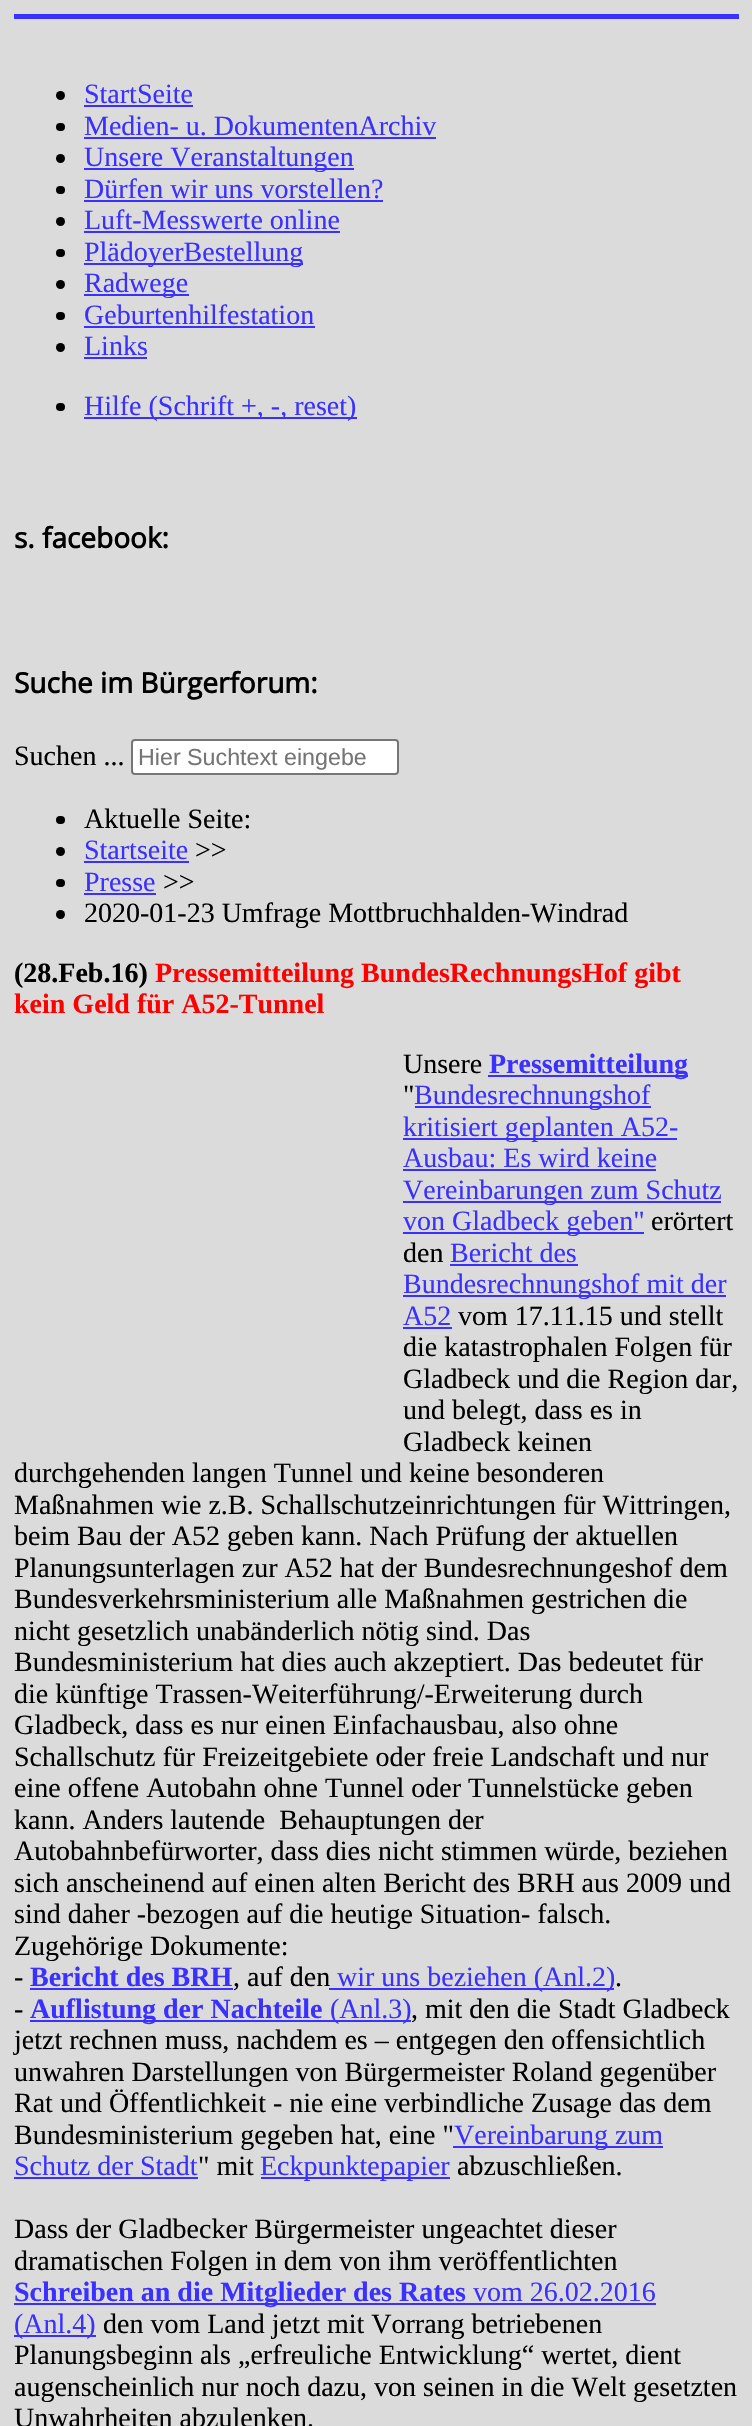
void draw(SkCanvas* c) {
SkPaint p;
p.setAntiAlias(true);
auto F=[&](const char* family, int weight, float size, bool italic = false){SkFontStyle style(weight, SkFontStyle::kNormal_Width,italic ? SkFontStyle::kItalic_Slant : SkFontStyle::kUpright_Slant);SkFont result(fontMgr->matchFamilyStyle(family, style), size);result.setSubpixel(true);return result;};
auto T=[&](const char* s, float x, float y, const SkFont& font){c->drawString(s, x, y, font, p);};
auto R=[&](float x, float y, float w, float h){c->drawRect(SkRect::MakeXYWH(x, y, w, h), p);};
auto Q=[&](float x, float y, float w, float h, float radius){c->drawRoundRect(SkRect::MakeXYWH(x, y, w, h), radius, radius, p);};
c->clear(0xffdbdbdb);
p.setColor(0xff3a30ff);
R(14,14,725,5);
p.setColor(0xff000000);
c->drawCircle(60.5,95.5,4.5,p);
auto f1 = F("Liberation Serif",400,28);
p.setColor(0xff3a30ff);
T("StartSeite",84,103,f1);
R(84,105,109,2);
p.setColor(0xff000000);
Q(56,123,9,8,4);
p.setColor(0xff3a30ff);
T("Medien- u. DokumentenArchiv",84,135,f1);
R(84,137,352,2);
p.setColor(0xff000000);
c->drawCircle(60.5,158.5,4.5,p);
p.setColor(0xff3a30ff);
R(84,168,270,2);
T("Unsere Veranstaltungen",84,166,f1);
p.setColor(0xff000000);
Q(56,186,9,8,4);
p.setColor(0xff3a30ff);
T("Dürfen wir uns vorstellen?",84,198,f1);
R(84,200,299,2);
p.setColor(0xff000000);
c->drawCircle(60.5,221.5,4.5,p);
p.setColor(0xff3a30ff);
T("Luft-Messwerte online",84,229,f1);
R(84,231,256,2);
p.setColor(0xff000000);
Q(56,249,9,8,4);
p.setColor(0xff3a30ff);
R(84,263,219,2);
T("PlädoyerBestellung",84,261,f1);
p.setColor(0xff000000);
c->drawCircle(60.5,284.5,4.5,p);
p.setColor(0xff3a30ff);
R(84,294,105,2);
T("Radwege",84,292,f1);
p.setColor(0xff000000);
Q(56,312,9,8,4);
p.setColor(0xff3a30ff);
T("Geburtenhilfestation",84,324,f1);
R(84,326,231,2);
p.setColor(0xff000000);
c->drawCircle(60.5,347.5,4.5,p);
p.setColor(0xff3a30ff);
T("Links",84,355,f1);
R(84,357,63,2);
p.setColor(0xff000000);
Q(56,403,9,8,4);
p.setColor(0xff3a30ff);
R(84,417,273,2);
T("Hilfe (Schrift +, -, reset)",84,415,f1);
auto f2 = F("Open Sans",700,28);
p.setColor(0xff000000);
T("s. facebook:",14,548,f2);
T("Suche im Bürgerforum:",14,693,f2);
T("Suchen ...",14,765,f1);
p.setColor(0xffffffff);
c->drawRoundRect(SkRect::MakeXYWH(132,740,266,34),3,3,p);
p.setStroke(true);
p.setStrokeWidth(2);
p.setColor(0xff767676);
c->drawRoundRect(SkRect::MakeXYWH(132,740,266,34),3,3,p);
auto f3 = F("Liberation Sans",400,23.25);
p.setStroke(false);
p.setColor(0xff757575);
T("Hier Suchtext eingebe",138,765,f3);
p.setColor(0xff000000);
Q(56,816,9,8,4);
T("Aktuelle Seite:",84,828,f1);
c->drawCircle(60.5,851.5,4.5,p);
p.setColor(0xff3a30ff);
T("Startseite",84,859,f1);
R(84,861,105,2);
p.setColor(0xff000000);
T(">>",195,859,f1);
Q(56,879,9,8,4);
p.setColor(0xff3a30ff);
T("Presse",84,891,f1);
R(84,893,72,2);
p.setColor(0xff000000);
T(">>",163,891,f1);
c->drawCircle(60.5,914.5,4.5,p);
T("2020-01-23 Umfrage Mottbruchhalden-Windrad",84,922,f1);
auto f4 = F("Liberation Serif",700,28);
T("(28.Feb.16)",14,982,f4);
p.setColor(0xffff0000);
T("Pressemitteilung BundesRechnungsHof gibt",155,982,f4);
T("kein Geld für A52-Tunnel",14,1013,f4);
p.setColor(0xff000000);
T("Unsere",403,1073,f1);
p.setColor(0xff3a30ff);
R(488,1075,200,2);
T("Pressemitteilung",489,1073,f4);
p.setColor(0xff000000);
T("\"",403,1104,f1);
p.setColor(0xff3a30ff);
R(415,1106,236,2);
T("Bundesrechnungshof",414,1104,f1);
R(403,1138,274,2);
T("kritisiert geplanten A52-",403,1136,f1);
T("Ausbau: Es wird keine",403,1167,f1);
R(403,1169,253,2);
R(403,1201,318,2);
T("Vereinbarungen zum Schutz",403,1199,f1);
R(403,1232,241,2);
T("von Gladbeck geben\"",403,1230,f1);
p.setColor(0xff000000);
T("erörtert",651,1230,f1);
T("den",403,1262,f1);
p.setColor(0xff3a30ff);
T("Bericht des",450,1262,f1);
R(450,1264,128,2);
R(403,1295,323,2);
T("Bundesrechnungshof mit der",403,1293,f1);
T("A52",403,1325,f1);
R(403,1327,49,2);
p.setColor(0xff000000);
T("vom 17.11.15 und stellt",458,1325,f1);
T("die katastrophalen Folgen für",403,1356,f1);
T("Gladbeck und die Region dar,",403,1388,f1);
T("und belegt, dass es in",403,1419,f1);
T("Gladbeck keinen",403,1451,f1);
T("durchgehenden langen Tunnel und keine besonderen",14,1482,f1);
T("Maßnahmen wie z.B. Schallschutzeinrichtungen für Wittringen,",14,1514,f1);
T("beim Bau der A52 geben kann. Nach Prüfung der aktuellen",14,1545,f1);
T("Planungsunterlagen zur A52 hat der Bundesrechnungeshof dem",14,1577,f1);
T("Bundesverkehrsministerium alle Maßnahmen gestrichen die",14,1608,f1);
T("nicht gesetzlich unabänderlich nötig sind. Das",14,1640,f1);
T("Bundesministerium hat dies auch akzeptiert. Das bedeutet für",14,1671,f1);
T("die künftige Trassen-Weiterführung/-Erweiterung durch",14,1703,f1);
T("Gladbeck, dass es nur einen Einfachausbau, also ohne",14,1734,f1);
T("Schallschutz für Freizeitgebiete oder freie Landschaft und nur",14,1766,f1);
T("eine offene Autobahn ohne Tunnel oder Tunnelstücke geben",14,1797,f1);
T("kann. Anders lautende  Behauptungen der",14,1829,f1);
T("Autobahnbefürworter, dass dies nicht stimmen würde, beziehen",14,1860,f1);
T("sich anscheinend auf einen alten Bericht des BRH aus 2009 und",14,1892,f1);
T("sind daher -bezogen auf die heutige Situation- falsch.",14,1923,f1);
T("Zugehörige Dokumente:",14,1955,f1);
T("-",14,1986,f1);
p.setColor(0xff3a30ff);
T("Bericht des BRH",30,1986,f4);
R(30,1988,203,2);
p.setColor(0xff000000);
T(", auf den",233,1986,f1);
p.setColor(0xff3a30ff);
R(329,1988,285,2);
T("wir uns beziehen (Anl.2)",337,1986,f1);
p.setColor(0xff000000);
T(".",615,1986,f1);
T("-",14,2018,f1);
p.setColor(0xff3a30ff);
R(30,2020,292,2);
T("Auflistung der Nachteile",30,2018,f4);
R(322,2020,89,2);
T("(Anl.3)",330,2018,f1);
p.setColor(0xff000000);
T(", mit den die Stadt Gladbeck",411,2018,f1);
T("jetzt rechnen muss, nachdem es – entgegen den offensichtlich",14,2049,f1);
T("unwahren Darstellungen von Bürgermeister Roland gegenüber",14,2081,f1);
T("Rat und Öffentlichkeit - nie eine verbindliche Zusage das dem",14,2112,f1);
T("Bundesministerium gegeben hat, eine \"",14,2144,f1);
p.setColor(0xff3a30ff);
R(453,2146,210,2);
T("Vereinbarung zum",454,2144,f1);
T("Schutz der Stadt",14,2175,f1);
R(14,2177,184,2);
p.setColor(0xff000000);
T("\" mit",198,2175,f1);
p.setColor(0xff3a30ff);
R(261,2177,189,2);
T("Eckpunktepapier",260,2175,f1);
p.setColor(0xff000000);
T("abzuschließen.",457,2175,f1);
T("Dass der Gladbecker Bürgermeister ungeachtet dieser",14,2238,f1);
T("dramatischen Folgen in dem von ihm veröffentlichten",14,2270,f1);
p.setColor(0xff3a30ff);
R(14,2303,642,2);
T("Schreiben an die Mitglieder des Rates",14,2301,f4);
T("vom 26.02.2016",473,2301,f1);
R(14,2335,82,2);
T("(Anl.4)",14,2333,f1);
p.setColor(0xff000000);
T("den vom Land jetzt mit Vorrang betriebenen",103,2333,f1);
T("Planungsbeginn als „erfreuliche Entwicklung“ wertet, dient",14,2364,f1);
T("augenscheinlich nur noch dazu, von seinen in die Welt gesetzten",14,2396,f1);
T("Unwahrheiten abzulenken.",14,2427,f1);
}
